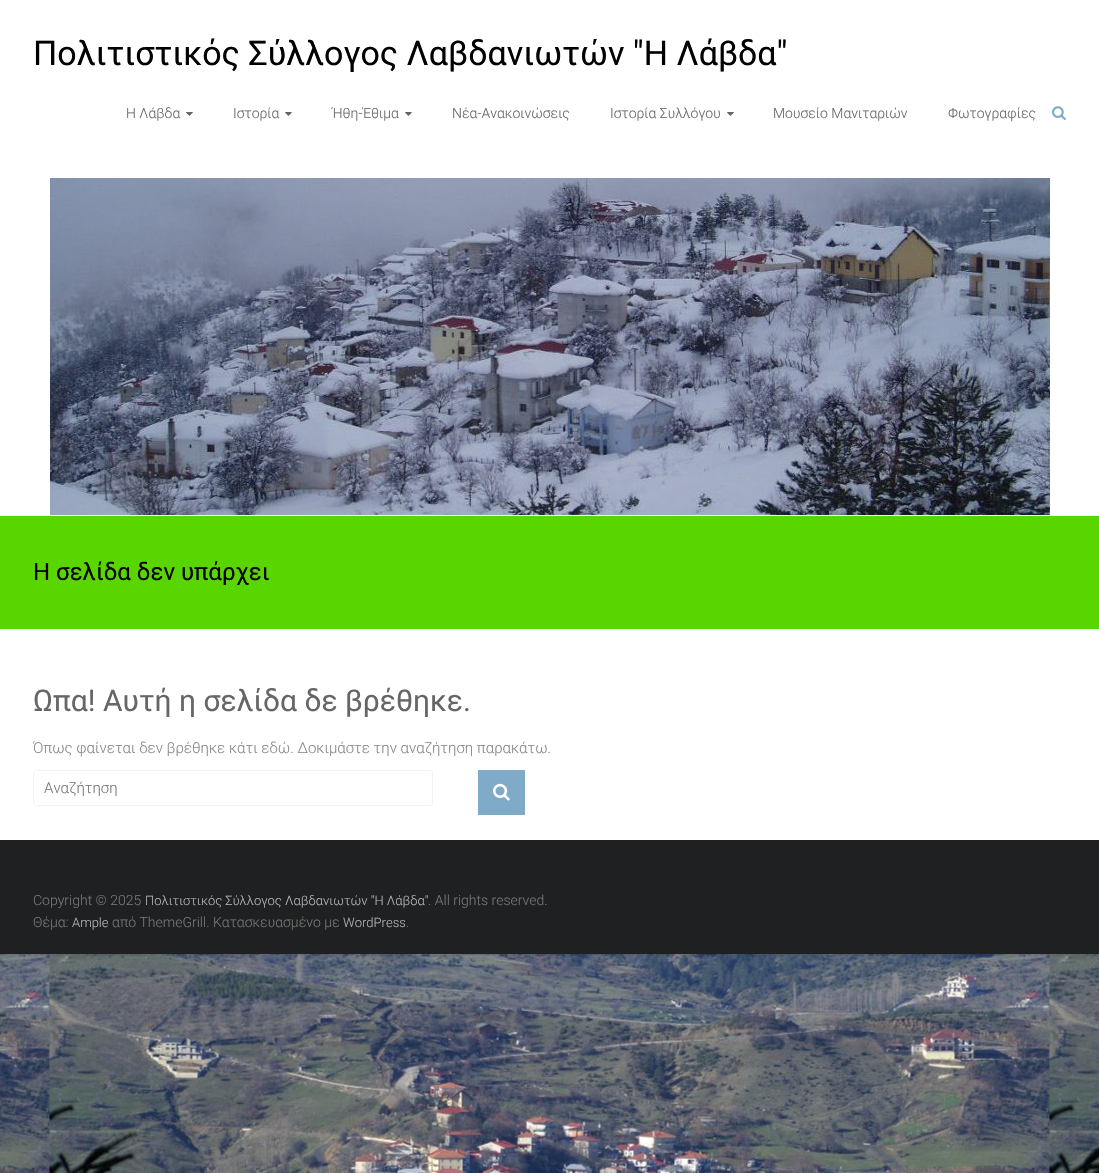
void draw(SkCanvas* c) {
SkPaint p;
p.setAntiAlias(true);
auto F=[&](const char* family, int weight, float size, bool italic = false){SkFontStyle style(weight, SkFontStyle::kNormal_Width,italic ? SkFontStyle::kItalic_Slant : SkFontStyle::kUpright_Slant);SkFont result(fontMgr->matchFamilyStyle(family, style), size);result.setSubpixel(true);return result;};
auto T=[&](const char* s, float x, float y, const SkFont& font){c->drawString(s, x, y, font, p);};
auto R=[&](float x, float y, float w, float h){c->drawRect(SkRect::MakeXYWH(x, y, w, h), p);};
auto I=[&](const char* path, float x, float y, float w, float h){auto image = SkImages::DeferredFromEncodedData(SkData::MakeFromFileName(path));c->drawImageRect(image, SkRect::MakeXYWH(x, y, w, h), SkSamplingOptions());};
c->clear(0xffffffff);
I("1.png",0,954,1099,219);
p.setColor(0x1a000000);
p.setMaskFilter(SkMaskFilter::MakeBlur(kNormal_SkBlurStyle, 1));
c->drawRect(SkRect::MakeXYWH(0,1,1099,954),p);
p.setMaskFilter(nullptr);
p.setColor(0xffffffff);
R(0,0,1099,840);
p.setColor(0xfff2f2f2);
R(0,515,1099,1);
auto f1 = F("Roboto",400,34);
p.setColor(0xff000000);
T("Πολιτιστικός Σύλλογος Λαβδανιωτών \"Η Λάβδα\"",33,65,f1);
auto f2 = F("Roboto",300,14);
p.setColor(0xff666666);
T("Η Λάβδα",126,118,f2);
I("2.png",186,112,7,4);
T("Ιστορία",233,118,f2);
I("2.png",285,112,7,4);
T("Ήθη-Έθιμα",332,118,f2);
I("2.png",405,112,7,4);
T("Νέα-Ανακοινώσεις",452,118,f2);
T("Ιστορία Συλλόγου",610,118,f2);
I("2.png",727,112,7,4);
T("Μουσείο Μανιταριών",773,118,f2);
T("Φωτογραφίες",948,118,f2);
I("3.png",1052,106,14,15);
I("4.png",50,178,1000,337);
p.setColor(0xff59d600);
R(0,516,1099,113);
p.setColor(0xfff2f2f2);
R(0,629,1099,1);
auto f3 = F("Roboto",400,24);
p.setColor(0xff000000);
T("Η σελίδα δεν υπάρχει",33,580,f3);
auto f4 = F("Roboto",400,30);
p.setColor(0xff666666);
T("Ωπα! Αυτή η σελίδα δε βρέθηκε.",33,711,f4);
auto f5 = F("Roboto",300,15);
p.setColor(0xff888888);
T("Όπως φαίνεται δεν βρέθηκε κάτι εδώ. Δοκιμάστε την αναζήτηση παρακάτω.",33,753,f5);
p.setStroke(true);
p.setStrokeWidth(1);
p.setColor(0xfff2f2f2);
c->drawRoundRect(SkRect::MakeXYWH(33.5,770.5,399,35),2.5,2.5,p);
p.setStroke(false);
p.setColor(0xff777777);
T("Αναζήτηση",44,793,f5);
p.setColor(0xff80abc8);
R(478,770,47,45);
I("5.png",493,783,17,18);
p.setColor(0xff1f2021);
R(0,840,1099,114);
p.setColor(0xff777777);
T("Copyright © 2025",33,905,f2);
auto f6 = F("Roboto",300,13);
p.setColor(0xffb1b6b6);
T("Πολιτιστικός Σύλλογος Λαβδανιωτών \"Η Λάβδα\"",145,905,f6);
p.setColor(0xff777777);
T(". All rights reserved.",428,905,f2);
T("Θέμα:",33,927,f2);
p.setColor(0xffb1b6b6);
T("Ample",72,927,f6);
p.setColor(0xff777777);
T("από ThemeGrill. Κατασκευασμένο με",112,927,f2);
p.setColor(0xffb1b6b6);
T("WordPress",343,927,f6);
p.setColor(0xff777777);
T(".",406,927,f2);
}
